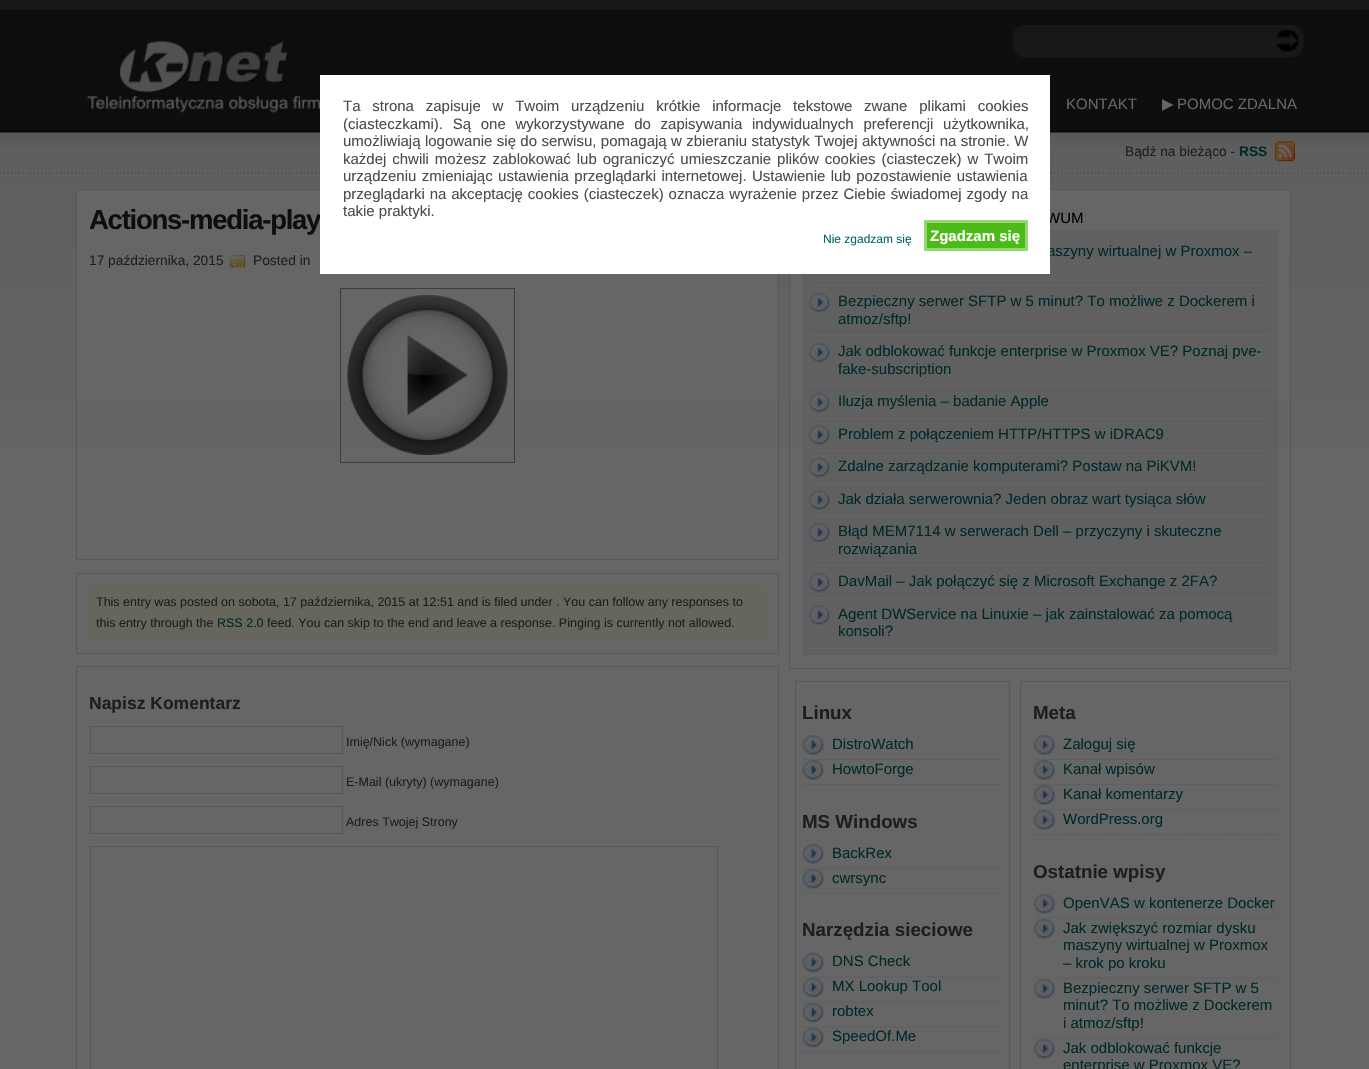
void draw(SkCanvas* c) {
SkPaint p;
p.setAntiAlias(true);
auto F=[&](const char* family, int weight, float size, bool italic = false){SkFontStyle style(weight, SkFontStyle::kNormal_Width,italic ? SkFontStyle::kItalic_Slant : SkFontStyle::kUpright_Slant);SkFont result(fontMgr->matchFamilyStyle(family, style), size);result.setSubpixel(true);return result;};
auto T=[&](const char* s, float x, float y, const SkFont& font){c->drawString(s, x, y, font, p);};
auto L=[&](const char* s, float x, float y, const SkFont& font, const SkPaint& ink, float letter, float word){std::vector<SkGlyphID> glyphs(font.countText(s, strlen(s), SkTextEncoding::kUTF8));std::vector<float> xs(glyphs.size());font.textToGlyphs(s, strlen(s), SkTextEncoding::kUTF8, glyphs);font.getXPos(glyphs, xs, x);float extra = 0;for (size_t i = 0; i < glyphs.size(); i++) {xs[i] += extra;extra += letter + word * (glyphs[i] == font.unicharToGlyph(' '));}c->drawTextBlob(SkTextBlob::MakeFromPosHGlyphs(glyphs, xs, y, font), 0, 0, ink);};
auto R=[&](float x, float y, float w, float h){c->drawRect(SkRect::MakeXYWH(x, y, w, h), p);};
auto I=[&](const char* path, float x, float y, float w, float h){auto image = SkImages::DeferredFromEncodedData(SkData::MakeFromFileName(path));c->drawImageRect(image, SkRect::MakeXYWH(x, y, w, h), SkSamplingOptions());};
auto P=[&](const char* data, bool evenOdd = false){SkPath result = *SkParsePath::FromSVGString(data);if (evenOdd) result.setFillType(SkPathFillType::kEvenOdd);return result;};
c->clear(0xff666666);
I("1.png",0,0,1369,449);
I("2.png",87,41,234,72);
I("3.png",1012,25,292,33);
I("4.png",1276,29,23,23);
auto f1 = F("Liberation Sans",400,15);
p.setColor(0xff666666);
T("KONTAKT",1066,109,f1);
auto f2 = F("DejaVu Sans",400,15);
T("▶",1162,109,f2);
T("POMOC ZDALNA",1177,109,f1);
I("5.png",1275,141,20,21);
auto f3 = F("Liberation Sans",400,13.75);
p.setColor(0xff1f1e1e);
T("Bądź na bieżąco -",1125,156,f3);
auto f4 = F("Liberation Sans",700,13.75);
p.setColor(0xff002929);
T("RSS",1239,156,f4);
p.setColor(0xff666666);
R(77,190,701,210);
p.setStroke(true);
p.setStrokeWidth(1);
p.setColor(0xff575757);
c->drawRect(SkRect::MakeXYWH(76.5,189.5,702,370),p);
auto f5 = F("Liberation Sans",700,27.5);
p.setStroke(false);
p.setColor(0xff0e0e0e);
L("Actions-media-play",89,229,f5,p,-1.25,0);
p.setColor(0xff1f1e1e);
T("17 października, 2015",89,265,f3);
I("6.png",229,254,17,14);
T("Posted in",253,265,f3);
p.setStroke(true);
p.setColor(0xff3d3d3d);
c->drawRect(SkRect::MakeXYWH(340.5,288.5,174,174),p);
I("7.png",347,295,161,160);
p.setColor(0xff575757);
c->drawRect(SkRect::MakeXYWH(76.5,573.5,702,80),p);
p.setStroke(false);
p.setColor(0xff66665c);
R(90,586,675,54);
auto f6 = F("Liberation Sans",400,12.5);
p.setColor(0xff1f1e1e);
T("This entry was posted on sobota, 17 października, 2015 at 12:51 and is filed under . You can follow any responses to",96,606,f6);
T("this entry through the",96,627,f6);
p.setColor(0xff002929);
T("RSS 2.0",217,627,f6);
p.setColor(0xff1f1e1e);
T("feed. You can skip to the end and leave a response. Pinging is currently not allowed.",267,627,f6);
p.setStroke(true);
p.setColor(0xff575757);
c->drawRect(SkRect::MakeXYWH(76.5,666.5,702,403),p);
auto f7 = F("Liberation Sans",700,17.5);
p.setStroke(false);
p.setColor(0xff1f1e1e);
T("Napisz Komentarz",89,709,f7);
p.setStroke(true);
p.setColor(0xff575757);
c->drawRect(SkRect::MakeXYWH(90.5,726.5,252,27),p);
p.setStroke(false);
p.setColor(0xff1f1e1e);
T("Imię/Nick (wymagane)",346,746,f6);
p.setStroke(true);
p.setColor(0xff575757);
c->drawRect(SkRect::MakeXYWH(90.5,766.5,252,27),p);
p.setStroke(false);
p.setColor(0xff1f1e1e);
T("E-Mail (ukryty) (wymagane)",346,786,f6);
p.setStroke(true);
p.setColor(0xff575757);
c->drawRect(SkRect::MakeXYWH(90.5,806.5,252,27),p);
p.setStroke(false);
p.setColor(0xff1f1e1e);
T("Adres Twojej Strony",346,826,f6);
p.setStroke(true);
p.setColor(0xff575757);
c->drawRect(SkRect::MakeXYWH(90.5,846.5,627,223),p);
p.setStroke(false);
p.setColor(0xff666666);
R(790,190,500,210);
p.setStroke(true);
p.setColor(0xff575757);
c->drawRect(SkRect::MakeXYWH(789.5,189.5,501,479),p);
p.setStroke(false);
p.setColor(0xff000000);
T("WUM",1046,223,f1);
p.setColor(0xff606060);
R(803,230,475,425);
p.setColor(0xff666666);
R(809,285,462,1);
p.setColor(0xff002929);
T("aszyny wirtualnej w Proxmox –",1047,256,f1);
I("8.png",808,292,22,21);
p.setColor(0xff666666);
R(809,335,462,1);
p.setColor(0xff002929);
T("Bezpieczny serwer SFTP w 5 minut? To możliwe z Dockerem i",838,306,f1);
T("atmoz/sftp!",838,324,f1);
I("9.png",808,342,22,21);
p.setColor(0xff666666);
R(809,385,462,1);
p.setColor(0xff002929);
T("Jak odblokować funkcje enterprise w Proxmox VE? Poznaj pve-",838,356,f1);
T("fake-subscription",838,374,f1);
I("9.png",808,392,22,21);
p.setColor(0xff666666);
R(809,418,462,1);
p.setColor(0xff002929);
T("Iluzja myślenia – badanie Apple",838,406,f1);
I("10.png",808,425,22,20);
p.setColor(0xff666666);
R(809,450,462,1);
p.setColor(0xff002929);
T("Problem z połączeniem HTTP/HTTPS w iDRAC9",838,439,f1);
I("9.png",808,457,22,21);
p.setColor(0xff666666);
R(809,483,462,1);
p.setColor(0xff002929);
T("Zdalne zarządzanie komputerami? Postaw na PiKVM!",838,471,f1);
I("10.png",808,490,22,20);
p.setColor(0xff666666);
R(809,515,462,1);
p.setColor(0xff002929);
T("Jak działa serwerownia? Jeden obraz wart tysiąca słów",838,504,f1);
I("9.png",808,522,22,21);
p.setColor(0xff666666);
R(809,565,462,1);
p.setColor(0xff002929);
T("Błąd MEM7114 w serwerach Dell – przyczyny i skuteczne",838,536,f1);
T("rozwiązania",838,554,f1);
I("9.png",808,572,22,21);
p.setColor(0xff666666);
R(809,598,462,1);
p.setColor(0xff002929);
T("DavMail – Jak połączyć się z Microsoft Exchange z 2FA?",838,586,f1);
I("10.png",808,605,22,20);
p.setColor(0xff666666);
R(809,648,462,1);
p.setColor(0xff002929);
T("Agent DWService na Linuxie – jak zainstalować za pomocą",838,619,f1);
T("konsoli?",838,636,f1);
p.setStroke(true);
p.setColor(0xff575757);
c->drawRect(SkRect::MakeXYWH(795.5,681.5,214,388),p);
auto f8 = F("Liberation Sans",700,18.75);
p.setStroke(false);
p.setColor(0xff1f1e1e);
T("Linux",802,719,f8);
I("11.png",802,735,22,20);
p.setStroke(true);
p.setStrokeWidth(1.2);
p.setColor(0xff575757);
p.setPathEffect(SkDashPathEffect::Make({{1.25f,1.25f}}, 0));
c->drawPath(P("M802.5 759.5h200"),p);
p.setPathEffect(nullptr);
p.setStroke(false);
p.setColor(0xff002929);
T("DistroWatch",832,749,f1);
I("12.png",802,760,22,20);
p.setStroke(true);
p.setColor(0xff575757);
p.setPathEffect(SkDashPathEffect::Make({{1.25f,1.25f}}, 0));
c->drawPath(P("M802.5 784.5h200"),p);
p.setPathEffect(nullptr);
p.setStroke(false);
p.setColor(0xff002929);
T("HowtoForge",832,774,f1);
p.setColor(0xff1f1e1e);
T("MS Windows",802,828,f8);
I("13.png",802,843,22,21);
p.setStroke(true);
p.setColor(0xff575757);
p.setPathEffect(SkDashPathEffect::Make({{1.25f,1.25f}}, 0));
c->drawPath(P("M802.5 868h200"),p);
p.setPathEffect(nullptr);
p.setStroke(false);
p.setColor(0xff002929);
T("BackRex",832,858,f1);
I("14.png",802,868,22,21);
p.setStroke(true);
p.setColor(0xff575757);
p.setPathEffect(SkDashPathEffect::Make({{1.25f,1.25f}}, 0));
c->drawPath(P("M802.5 893h200"),p);
p.setPathEffect(nullptr);
p.setStroke(false);
p.setColor(0xff002929);
T("cwrsync",832,883,f1);
p.setColor(0xff1f1e1e);
T("Narzędzia sieciowe",802,936,f8);
I("15.png",802,952,22,21);
p.setStroke(true);
p.setColor(0xff575757);
p.setPathEffect(SkDashPathEffect::Make({{1.25f,1.25f}}, 0));
c->drawPath(P("M802.5 977h200"),p);
p.setPathEffect(nullptr);
p.setStroke(false);
p.setColor(0xff002929);
T("DNS Check",832,966,f1);
I("16.png",802,977,22,21);
p.setStroke(true);
p.setColor(0xff575757);
p.setPathEffect(SkDashPathEffect::Make({{1.25f,1.25f}}, 0));
c->drawPath(P("M802.5 1002h200"),p);
p.setPathEffect(nullptr);
p.setStroke(false);
p.setColor(0xff002929);
T("MX Lookup Tool",832,991,f1);
I("16.png",802,1002,22,21);
p.setStroke(true);
p.setColor(0xff575757);
p.setPathEffect(SkDashPathEffect::Make({{1.25f,1.25f}}, 0));
c->drawPath(P("M802.5 1027h200"),p);
p.setPathEffect(nullptr);
p.setStroke(false);
p.setColor(0xff002929);
T("robtex",832,1016,f1);
I("16.png",802,1027,22,21);
p.setStroke(true);
p.setColor(0xff575757);
p.setPathEffect(SkDashPathEffect::Make({{1.25f,1.25f}}, 0));
c->drawPath(P("M802.5 1052h200"),p);
p.setPathEffect(nullptr);
p.setStroke(false);
p.setColor(0xff002929);
T("SpeedOf.Me",832,1041,f1);
p.setStroke(true);
p.setStrokeWidth(1);
p.setColor(0xff575757);
c->drawRect(SkRect::MakeXYWH(1020.5,681.5,270,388),p);
p.setStroke(false);
p.setColor(0xff1f1e1e);
T("Meta",1033,719,f8);
I("17.png",1033,735,22,20);
p.setStroke(true);
p.setStrokeWidth(1.2);
p.setColor(0xff575757);
p.setPathEffect(SkDashPathEffect::Make({{1.25f,1.25f}}, 0));
c->drawPath(P("M1034 759.5h243.5"),p);
p.setPathEffect(nullptr);
p.setStroke(false);
p.setColor(0xff002929);
T("Zaloguj się",1063,749,f1);
I("18.png",1033,760,22,20);
p.setStroke(true);
p.setColor(0xff575757);
p.setPathEffect(SkDashPathEffect::Make({{1.25f,1.25f}}, 0));
c->drawPath(P("M1034 784.5h243.5"),p);
p.setPathEffect(nullptr);
p.setStroke(false);
p.setColor(0xff002929);
T("Kanał wpisów",1063,774,f1);
I("18.png",1033,785,22,20);
p.setStroke(true);
p.setColor(0xff575757);
p.setPathEffect(SkDashPathEffect::Make({{1.25f,1.25f}}, 0));
c->drawPath(P("M1034 809.5h243.5"),p);
p.setPathEffect(nullptr);
p.setStroke(false);
p.setColor(0xff002929);
T("Kanał komentarzy",1063,799,f1);
I("18.png",1033,810,22,20);
p.setStroke(true);
p.setColor(0xff575757);
p.setPathEffect(SkDashPathEffect::Make({{1.25f,1.25f}}, 0));
c->drawPath(P("M1034 834.5h243.5"),p);
p.setPathEffect(nullptr);
p.setStroke(false);
p.setColor(0xff002929);
T("WordPress.org",1063,824,f1);
p.setColor(0xff1f1e1e);
T("Ostatnie wpisy",1033,878,f8);
I("19.png",1033,893,22,21);
p.setStroke(true);
p.setColor(0xff575757);
p.setPathEffect(SkDashPathEffect::Make({{1.25f,1.25f}}, 0));
c->drawPath(P("M1034 918h243.5"),p);
p.setPathEffect(nullptr);
p.setStroke(false);
p.setColor(0xff002929);
T("OpenVAS w kontenerze Docker",1063,908,f1);
I("20.png",1033,918,22,21);
p.setStroke(true);
p.setColor(0xff575757);
p.setPathEffect(SkDashPathEffect::Make({{1.25f,1.25f}}, 0));
c->drawPath(P("M1034 978h243.5"),p);
p.setPathEffect(nullptr);
p.setStroke(false);
p.setColor(0xff002929);
T("Jak zwiększyć rozmiar dysku",1063,933,f1);
T("maszyny wirtualnej w Proxmox",1063,950,f1);
T("– krok po kroku",1063,968,f1);
I("20.png",1033,978,22,21);
p.setStroke(true);
p.setColor(0xff575757);
p.setPathEffect(SkDashPathEffect::Make({{1.25f,1.25f}}, 0));
c->drawPath(P("M1034 1038h243.5"),p);
p.setPathEffect(nullptr);
p.setStroke(false);
p.setColor(0xff002929);
T("Bezpieczny serwer SFTP w 5",1063,993,f1);
T("minut? To możliwe z Dockerem",1063,1010,f1);
T("i atmoz/sftp!",1063,1028,f1);
I("20.png",1033,1038,22,21);
T("Jak odblokować funkcje",1063,1053,f1);
T("enterprise w Proxmox VE?",1063,1070,f1);
p.setColor(0xffffffff);
R(320,75,730,199);
p.setColor(0xff4d4b4c);
L("Ta strona zapisuje w Twoim urządzeniu krótkie informacje tekstowe zwane plikami cookies",343,111,f1,p,0,7.6);
L("(ciasteczkami). Są one wykorzystywane do zapisywania indywidualnych preferencji użytkownika,",343,129,f1,p,0,5.5);
L("umożliwiają logowanie się do serwisu, pomagają w zbieraniu statystyk Twojej aktywności na stronie. W",343,146,f1,p,0,.2);
L("każdej chwili możesz zablokować lub ograniczyć umieszczanie plików cookies (ciasteczek) w Twoim",343,164,f1,p,0,1.75);
L("urządzeniu zmieniając ustawienia przeglądarki internetowej. Ustawienie lub pozostawienie ustawienia",343,181,f1,p,0,1.25);
L("przeglądarki na akceptację cookies (ciasteczek) oznacza wyrażenie przez Ciebie świadomej zgody na",343,199,f1,p,0,.75);
T("takie praktyki.",343,216,f1);
auto f9 = F("Liberation Sans",400,12);
p.setColor(0xff006666);
T("Nie zgadzam się",823,243,f9);
p.setColor(0xff4cbb17);
c->drawRect(SkRect::MakeXYWH(925.5,221.5,101,28),p);
p.setStroke(true);
p.setStrokeWidth(3);
p.setColor(0xff93db70);
c->drawRect(SkRect::MakeXYWH(925.5,221.5,101,28),p);
auto f10 = F("Liberation Sans",700,15);
p.setStroke(false);
p.setColor(0xffffffff);
T("Zgadzam się",930,241,f10);
}
